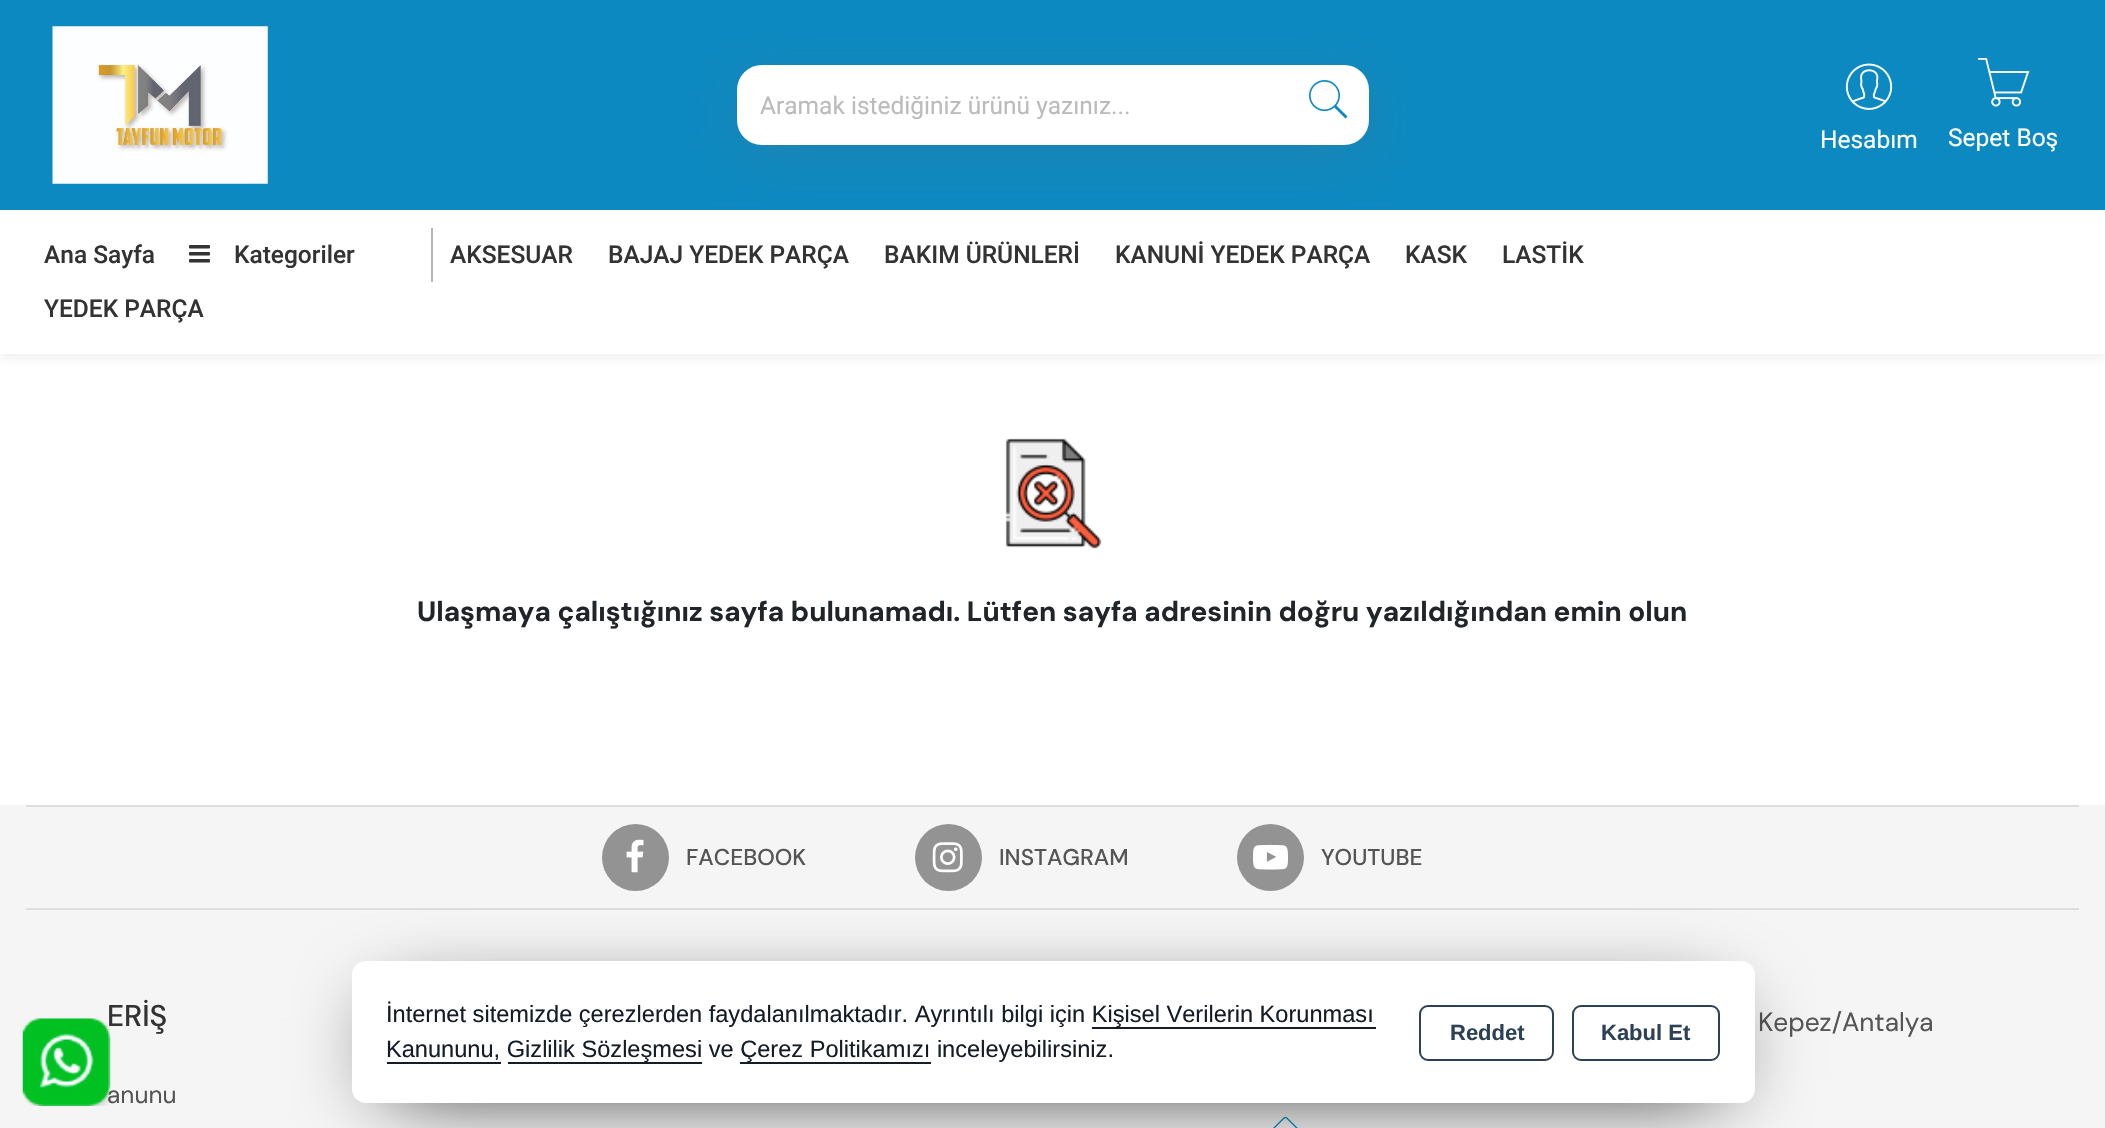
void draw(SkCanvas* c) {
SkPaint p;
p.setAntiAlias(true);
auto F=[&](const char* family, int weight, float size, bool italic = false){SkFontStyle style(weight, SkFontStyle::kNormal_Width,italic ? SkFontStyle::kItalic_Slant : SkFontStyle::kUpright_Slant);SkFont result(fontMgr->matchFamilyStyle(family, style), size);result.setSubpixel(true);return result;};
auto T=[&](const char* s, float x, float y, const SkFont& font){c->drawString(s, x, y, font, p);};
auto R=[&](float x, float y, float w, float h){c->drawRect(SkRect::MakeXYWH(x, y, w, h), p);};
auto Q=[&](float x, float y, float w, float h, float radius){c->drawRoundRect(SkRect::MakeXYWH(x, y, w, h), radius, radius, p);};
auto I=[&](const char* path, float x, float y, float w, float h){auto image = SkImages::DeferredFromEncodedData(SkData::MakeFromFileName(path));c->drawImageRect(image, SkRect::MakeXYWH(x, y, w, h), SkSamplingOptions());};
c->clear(0xffffffff);
p.setColor(0xff0c89c1);
R(0,0,2105,210);
I("1.png",52,26,216,158);
p.setColor(0x2e6b6b6c);
p.setMaskFilter(SkMaskFilter::MakeBlur(kNormal_SkBlurStyle, 25.5));
c->drawRoundRect(SkRect::MakeXYWH(737,77,632,81),25,25,p);
p.setMaskFilter(nullptr);
p.setColor(0xffffffff);
c->drawRoundRect(SkRect::MakeXYWH(738,66,630,78),24,24,p);
p.setStroke(true);
p.setStrokeWidth(2);
c->drawRoundRect(SkRect::MakeXYWH(738,66,630,78),24,24,p);
c->save();
c->clipRect(SkRect::MakeXYWH(760,91,511,28));
auto f1 = F("Roboto",400,24.5);
p.setStroke(false);
p.setColor(0xffbbbbbb);
T("Aramak istediğiniz ürünü yazınız...",760,114,f1);
c->restore();
I("2.png",1309,80,39,39);
I("3.png",1845,63,48,47);
p.setColor(0xffffffff);
T("Hesabım",1820,148,f1);
I("4.png",1978,58,52,49);
T("Sepet Boş",1948,146,f1);
p.setColor(0x144b4b4b);
p.setMaskFilter(SkMaskFilter::MakeBlur(kNormal_SkBlurStyle, 4.5));
c->drawRect(SkRect::MakeXYWH(0,215,2105,144),p);
p.setMaskFilter(nullptr);
p.setColor(0xffffffff);
R(0,210,2105,144);
auto f2 = F("Roboto",500,24.5);
p.setColor(0xff333333);
T("Ana Sayfa",44,263,f2);
p.setColor(0xffbab6b6);
R(431,228,2,54);
I("5.png",189,245,21,18);
p.setColor(0xff333333);
T("Kategoriler",234,263,f2);
T("AKSESUAR",450,263,f2);
T("BAJAJ YEDEK PARÇA",608,263,f2);
T("BAKIM ÜRÜNLERİ",884,263,f2);
T("KANUNİ YEDEK PARÇA",1115,263,f2);
T("KASK",1405,263,f2);
T("LASTİK",1502,263,f2);
T("YEDEK PARÇA",44,317,f2);
I("6.png",1005,438,97,111);
auto f3 = F("DM Sans",700,28);
p.setColor(0xff212529);
T("Ulaşmaya çalıştığınız sayfa bulunamadı. Lütfen sayfa adresinin doğru yazıldığından emin olun",417,621,f3);
p.setColor(0xfff5f5f5);
R(0,805,2105,323);
auto f4 = F("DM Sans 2",500,30);
p.setColor(0xff333333);
T("ERİŞ",107,1026,f4);
auto f5 = F("DM Sans",400,24.5);
p.setColor(0xff555555);
T("anunu",107,1103,f5);
I("7.png",22,1018,89,88);
p.setColor(0xffdddddd);
R(26,805,2053,2);
R(26,908,2053,2);
p.setColor(0xff939393);
c->drawCircle(635.5,857.5,33.5,p);
I("8.png",626,839,18,34);
auto f6 = F("DM Sans",500,22.75);
p.setColor(0xff555555);
T("FACEBOOK",686,865,f6);
p.setColor(0xff939393);
c->drawCircle(948.5,857.5,33.5,p);
I("9.png",932,842,31,31);
p.setColor(0xff555555);
T("INSTAGRAM",999,865,f6);
p.setColor(0xff939393);
c->drawCircle(1270.5,857.5,33.5,p);
I("10.png",1253,844,35,26);
p.setColor(0xff555555);
T("YOUTUBE",1321,865,f6);
auto f7 = F("DM Sans 2",400,26.25);
T("Kepez/Antalya",1758,1031,f7);
I("11.png",1273,1116,25,12);
p.setColor(0xff000000);
p.setMaskFilter(SkMaskFilter::MakeBlur(kNormal_SkBlurStyle, 44));
c->drawRect(SkRect::MakeXYWH(387,1013,1333,72),p);
p.setMaskFilter(nullptr);
p.setColor(0xffffffff);
Q(352,961,1403,142,14);
auto f8 = F("Liberation Sans",400,23.6);
p.setColor(0xff131c27);
T("İnternet sitemizde çerezlerden faydalanılmaktadır. Ayrıntılı bilgi için Kişisel Verilerin Korunması",386,1022,f8);
T("Kanununu, Gizlilik Sözleşmesi ve Çerez Politikamızı inceleyebilirsiniz.",386,1057,f8);
R(1092,1027,284,2);
R(387,1062,114,2);
R(508,1062,194,2);
R(740,1062,191,2);
p.setStroke(true);
p.setColor(0xff2d4156);
c->drawRoundRect(SkRect::MakeXYWH(1420,1006,133,54),8,8,p);
auto f9 = F("Liberation Sans",700,22);
p.setStroke(false);
T("Reddet",1450,1040,f9);
p.setStroke(true);
c->drawRoundRect(SkRect::MakeXYWH(1573,1006,146,54),8,8,p);
p.setStroke(false);
T("Kabul Et",1601,1040,f9);
}
